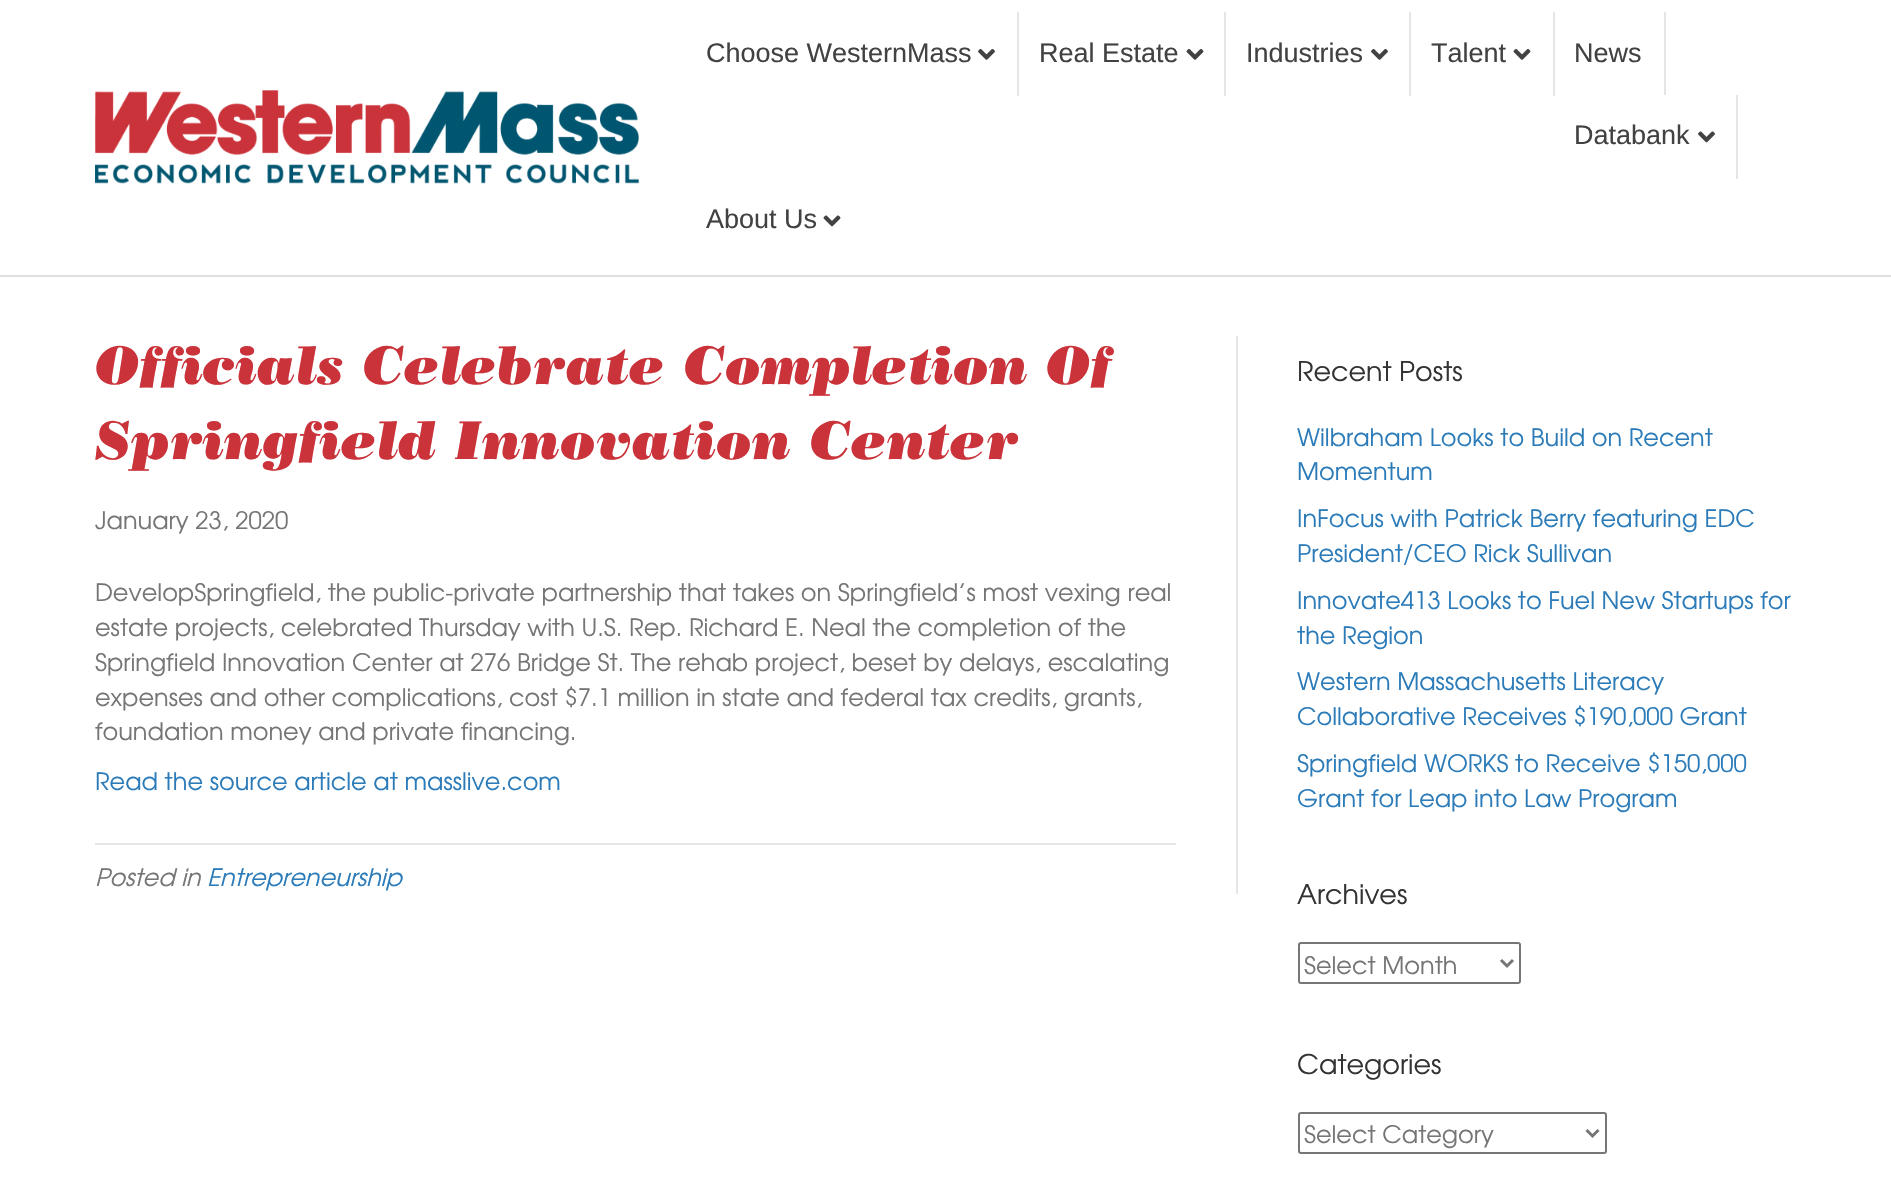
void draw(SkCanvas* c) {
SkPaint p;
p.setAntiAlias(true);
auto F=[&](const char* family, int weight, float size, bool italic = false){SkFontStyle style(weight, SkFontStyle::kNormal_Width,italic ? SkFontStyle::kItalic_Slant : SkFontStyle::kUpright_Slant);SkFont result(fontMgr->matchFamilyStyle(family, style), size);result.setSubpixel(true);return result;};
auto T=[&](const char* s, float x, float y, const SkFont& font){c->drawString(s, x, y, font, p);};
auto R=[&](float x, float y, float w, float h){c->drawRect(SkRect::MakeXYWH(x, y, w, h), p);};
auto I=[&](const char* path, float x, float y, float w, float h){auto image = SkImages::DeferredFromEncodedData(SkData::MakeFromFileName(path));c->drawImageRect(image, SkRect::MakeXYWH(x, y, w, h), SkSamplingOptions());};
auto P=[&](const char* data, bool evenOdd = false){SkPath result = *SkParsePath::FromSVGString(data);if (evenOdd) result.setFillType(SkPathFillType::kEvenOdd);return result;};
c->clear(0xffffffff);
p.setColor(0xffdedede);
R(0,275,1891,2);
I("1.png",95,90,544,94);
p.setColor(0xffe5e5e5);
R(1017,12,2,84);
auto f1 = F("Liberation Sans",400,27);
p.setColor(0xff424242);
T("Choose WesternMass",706,62,f1);
I("2.png",978,49,17,11);
p.setColor(0xffe5e5e5);
R(1224,12,2,84);
p.setColor(0xff424242);
T("Real Estate",1039,62,f1);
I("3.png",1186,49,18,11);
p.setColor(0xffe5e5e5);
R(1409,12,2,84);
p.setColor(0xff424242);
T("Industries",1246,62,f1);
I("2.png",1371,49,17,11);
p.setColor(0xffe5e5e5);
R(1553,12,2,84);
p.setColor(0xff424242);
T("Talent",1431,62,f1);
I("3.png",1513,49,18,11);
p.setColor(0xffe5e5e5);
R(1664,12,2,83);
p.setColor(0xff424242);
T("News",1574,62,f1);
p.setColor(0xffe5e5e5);
R(1736,95,2,84);
p.setColor(0xff424242);
T("Databank",1574,144,f1);
I("4.png",1698,131,17,12);
T("About Us",706,228,f1);
I("5.png",823,215,18,12);
p.setColor(0xffe6e6e6);
R(1236,336,2,558);
auto f2 = F("Bodoni",900,54,true);
p.setColor(0xffcb333b);
T("Officials Celebrate Completion Of",95,384,f2);
T("Springfield Innovation Center",95,459,f2);
auto f3 = F("TeX Gyre Adventor",400,24);
p.setColor(0xff757575);
T("January 23, 2020",95,529,f3);
T("DevelopSpringfield, the public-private partnership that takes on Springfield’s most vexing real",95,601,f3);
T("estate projects, celebrated Thursday with U.S. Rep. Richard E. Neal the completion of the",95,636,f3);
T("Springfield Innovation Center at 276 Bridge St. The rehab project, beset by delays, escalating",95,671,f3);
T("expenses and other complications, cost $7.1 million in state and federal tax credits, grants,",95,706,f3);
T("foundation money and private financing.",95,740,f3);
p.setColor(0xff2b7bb9);
T("Read the source article at masslive.com",95,790,f3);
p.setColor(0xffe6e6e6);
R(95,843,1081,2);
auto f4 = F("TeX Gyre Adventor",400,24,true);
p.setColor(0xff757575);
T("Posted in",95,886,f4);
p.setColor(0xff2b7bb9);
T("Entrepreneurship",207,886,f4);
auto f5 = F("TeX Gyre Adventor",400,27);
p.setColor(0xff333333);
T("Recent Posts",1297,381,f5);
p.setColor(0xff2b7bb9);
T("Wilbraham Looks to Build on Recent",1297,446,f3);
T("Momentum",1297,480,f3);
T("InFocus with Patrick Berry featuring EDC",1297,527,f3);
T("President/CEO Rick Sullivan",1297,562,f3);
T("Innovate413 Looks to Fuel New Startups for",1297,609,f3);
T("the Region",1297,644,f3);
T("Western Massachusetts Literacy",1297,690,f3);
T("Collaborative Receives $190,000 Grant",1297,725,f3);
T("Springfield WORKS to Receive $150,000",1297,772,f3);
T("Grant for Leap into Law Program",1297,807,f3);
p.setColor(0xff333333);
T("Archives",1297,904,f5);
p.setStroke(true);
p.setStrokeWidth(2);
p.setColor(0xff767676);
c->drawRoundRect(SkRect::MakeXYWH(1299,943,221,40),2,2,p);
p.setStrokeWidth(3);
p.setColor(0xff757575);
c->drawPath(P("M1501 960l6 6l6-6"),p);
p.setStroke(false);
T("Select Month",1304,974,f3);
p.setColor(0xff333333);
T("Categories",1297,1074,f5);
p.setStroke(true);
p.setStrokeWidth(2);
p.setColor(0xff767676);
c->drawRoundRect(SkRect::MakeXYWH(1299,1113,307,40),2,2,p);
p.setStrokeWidth(3);
p.setColor(0xff757575);
c->drawPath(P("M1586.5 1130l6 6l6-6"),p);
p.setStroke(false);
T("Select Category",1304,1143,f3);
}
